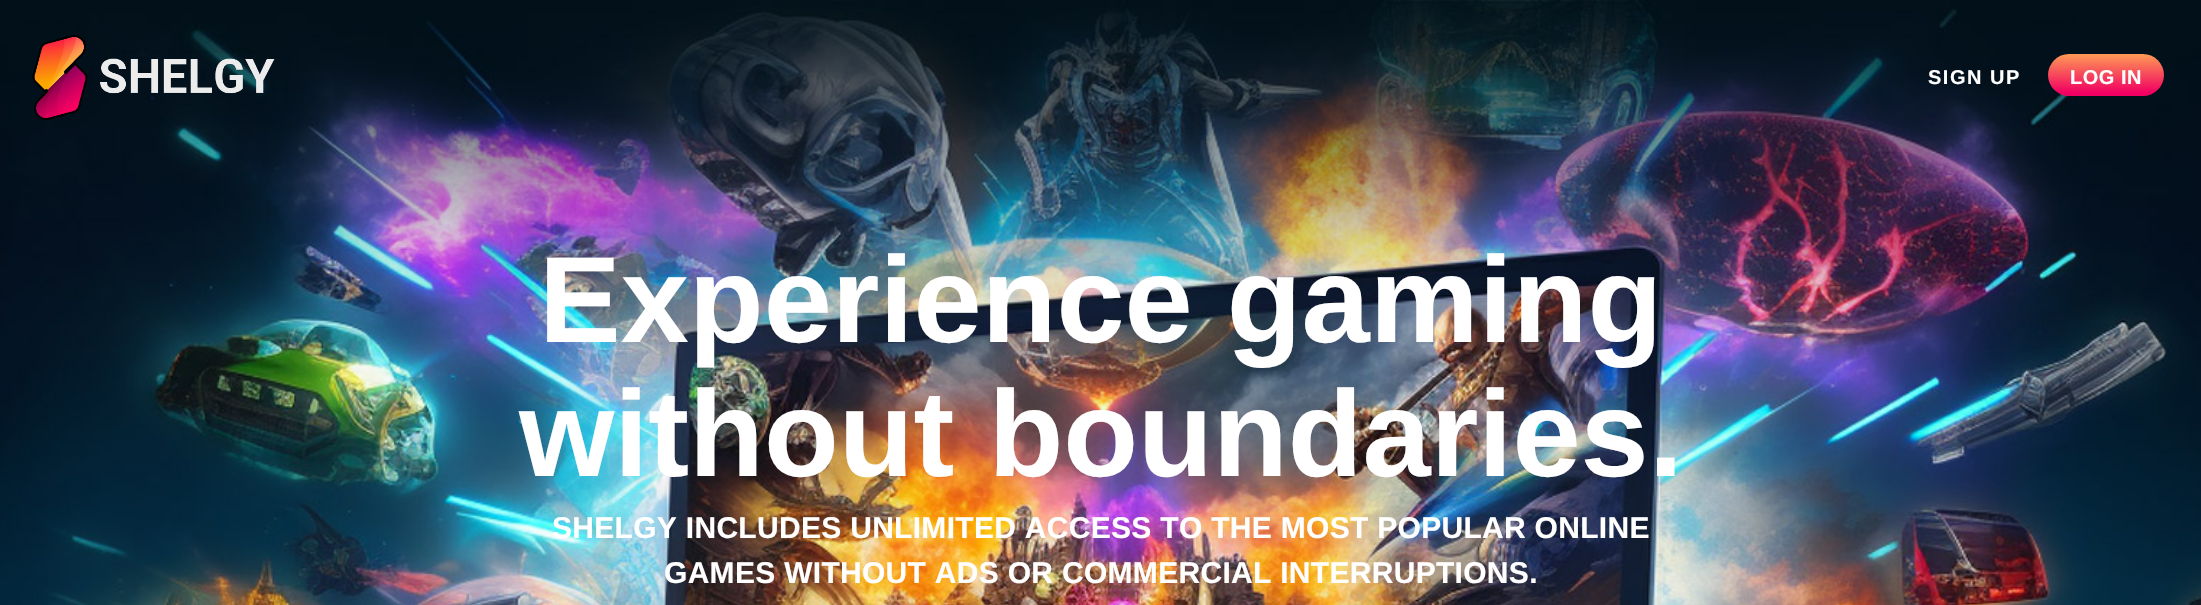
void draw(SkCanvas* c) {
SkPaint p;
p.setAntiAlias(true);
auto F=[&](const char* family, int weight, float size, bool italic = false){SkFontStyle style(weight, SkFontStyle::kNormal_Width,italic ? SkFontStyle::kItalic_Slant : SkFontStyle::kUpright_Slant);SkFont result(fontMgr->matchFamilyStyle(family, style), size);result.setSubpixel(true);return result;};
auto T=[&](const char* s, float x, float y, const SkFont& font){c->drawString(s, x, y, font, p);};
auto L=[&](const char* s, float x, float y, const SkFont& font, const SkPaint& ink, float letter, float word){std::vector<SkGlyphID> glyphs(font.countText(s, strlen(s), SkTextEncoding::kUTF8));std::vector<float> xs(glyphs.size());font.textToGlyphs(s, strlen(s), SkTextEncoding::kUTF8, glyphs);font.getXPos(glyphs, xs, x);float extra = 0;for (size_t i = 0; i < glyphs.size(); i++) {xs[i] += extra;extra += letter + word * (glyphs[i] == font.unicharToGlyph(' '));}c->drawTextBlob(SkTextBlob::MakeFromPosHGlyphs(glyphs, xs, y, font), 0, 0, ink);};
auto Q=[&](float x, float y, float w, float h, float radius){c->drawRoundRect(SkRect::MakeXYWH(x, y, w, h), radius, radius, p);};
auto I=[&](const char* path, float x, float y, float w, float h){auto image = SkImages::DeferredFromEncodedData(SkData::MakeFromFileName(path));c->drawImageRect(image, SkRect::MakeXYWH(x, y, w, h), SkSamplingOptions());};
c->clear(0xffffffff);
I("2.png",0,0,2201,605);
I("1.png",32,35,243,85);
auto f1 = F("Liberation Sans",700,20);
p.setColor(0xffffffff);
L("SIGN UP",1928,84,f1,p,1.5,0);
{
const SkColor colors[] = {0xfffe9b55,0xfff10061};
const float stops[] = {0,.92};
const SkPoint ends[] = {{2106,54}, {2106,96}};
p.setShader(SkGradientShader::MakeLinear(ends, colors, stops, 2, SkTileMode::kClamp));
p.setAlpha(255);
}
Q(2048,54,116,42,21);
p.setShader(nullptr);
p.setColor(0xffffffff);
L("LOG IN",2070,84,f1,p,.5,0);
auto f2 = F("Liberation Sans",700,122.5);
T("Experience gaming",539,342,f2);
T("without boundaries.",519,476,f2);
auto f3 = F("Liberation Sans",700,30);
L("SHELGY INCLUDES UNLIMITED ACCESS TO THE MOST POPULAR ONLINE",552,538,f3,p,.3,0);
L("GAMES WITHOUT ADS OR COMMERCIAL INTERRUPTIONS.",664,583,f3,p,.3,0);
}
